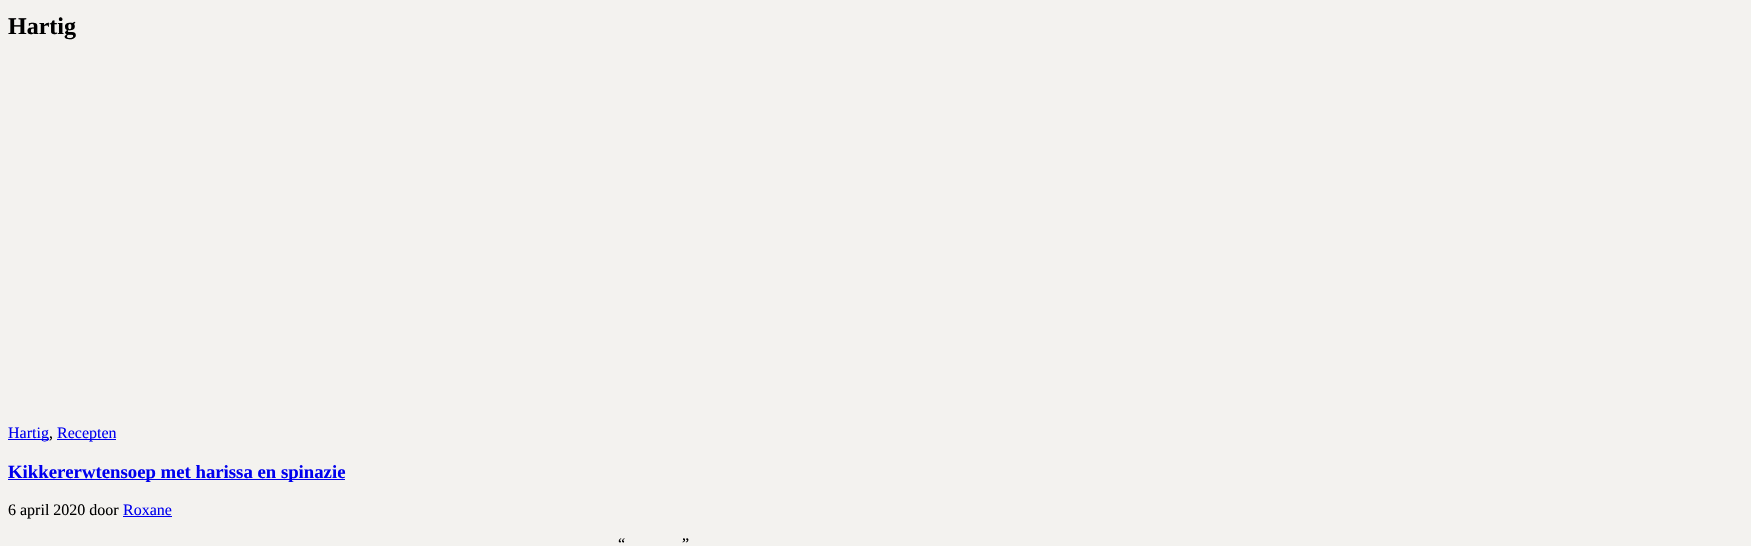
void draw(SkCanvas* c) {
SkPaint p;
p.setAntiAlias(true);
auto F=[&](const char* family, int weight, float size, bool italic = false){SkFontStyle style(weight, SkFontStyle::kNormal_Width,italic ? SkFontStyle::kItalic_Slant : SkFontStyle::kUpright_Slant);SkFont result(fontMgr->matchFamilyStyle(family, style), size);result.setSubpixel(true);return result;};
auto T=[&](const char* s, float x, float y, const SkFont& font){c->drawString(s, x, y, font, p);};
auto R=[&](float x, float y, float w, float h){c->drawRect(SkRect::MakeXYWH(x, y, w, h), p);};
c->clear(0xfff3f2ef);
auto f1 = F("Liberation Serif",700,24);
p.setColor(0xff000000);
T("Hartig",8,34,f1);
p.setColor(0xff0000ee);
R(8,439,41,1);
auto f2 = F("Liberation Serif",400,16);
T("Hartig",8,438,f2);
p.setColor(0xff000000);
T(",",49,438,f2);
p.setColor(0xff0000ee);
R(57,439,59,1);
T("Recepten",57,438,f2);
R(8,479,337,1);
auto f3 = F("Liberation Serif",700,18.75);
T("Kikkererwtensoep met harissa en spinazie",8,478,f3);
p.setColor(0xff000000);
T("6 april 2020 door",8,515,f2);
p.setColor(0xff0000ee);
T("Roxane",123,515,f2);
R(123,516,49,1);
p.setColor(0xff000000);
T("“",618,549,f2);
T("”",682,549,f2);
}
